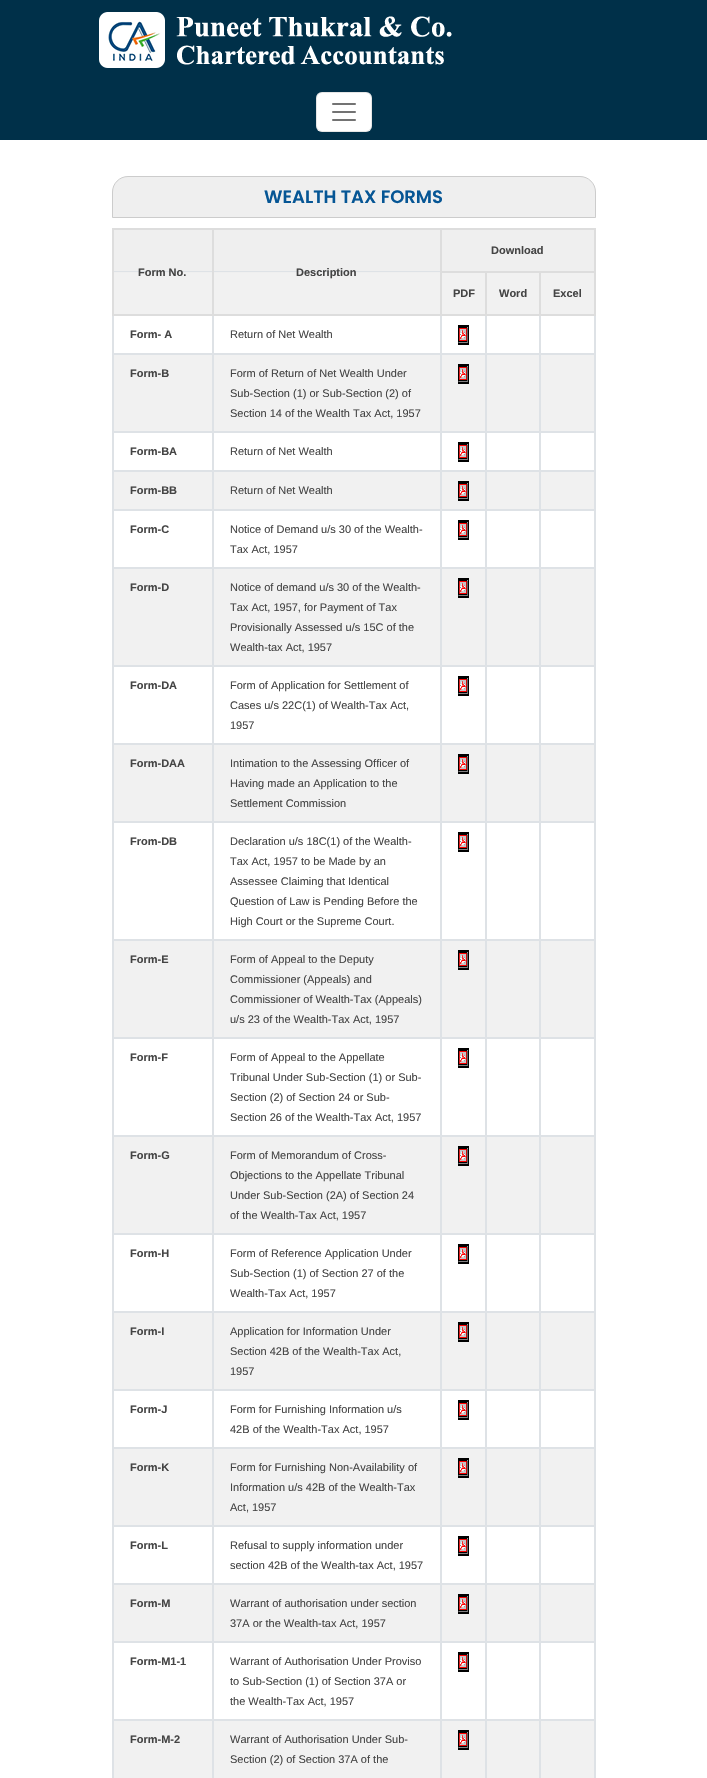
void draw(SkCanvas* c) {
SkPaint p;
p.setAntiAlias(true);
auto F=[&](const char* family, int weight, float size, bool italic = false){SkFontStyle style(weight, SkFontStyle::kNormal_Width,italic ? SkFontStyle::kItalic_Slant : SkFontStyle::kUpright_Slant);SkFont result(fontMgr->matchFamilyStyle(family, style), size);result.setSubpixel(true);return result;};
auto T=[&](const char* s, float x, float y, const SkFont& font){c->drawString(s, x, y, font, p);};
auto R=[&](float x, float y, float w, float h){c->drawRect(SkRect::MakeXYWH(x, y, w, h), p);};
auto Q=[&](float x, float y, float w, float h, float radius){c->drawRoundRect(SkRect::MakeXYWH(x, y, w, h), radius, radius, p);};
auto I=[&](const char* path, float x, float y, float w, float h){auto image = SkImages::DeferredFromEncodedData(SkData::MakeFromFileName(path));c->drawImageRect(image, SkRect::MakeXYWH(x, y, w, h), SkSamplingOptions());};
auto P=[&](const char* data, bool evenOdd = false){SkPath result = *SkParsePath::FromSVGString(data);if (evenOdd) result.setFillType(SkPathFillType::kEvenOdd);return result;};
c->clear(0xffffffff);
p.setColor(0xff003049);
R(0,0,707,140);
I("1.png",99,12,353,56);
p.setColor(0xffffffff);
Q(316,92,56,40,6);
p.setStroke(true);
p.setStrokeWidth(1);
p.setColor(0x1a000000);
c->drawRoundRect(SkRect::MakeXYWH(316.5,92.5,55,39),5.5,5.5,p);
I("2.png",332,103,24,18);
p.setStroke(false);
p.setColor(0xffefefef);
c->drawPath(P("M128 176.5h452c8.5 0 15.5 7 15.5 15.5v25.5h-483v-25.5c0-8.5 7-15.5 15.5-15.5z"),p);
p.setStroke(true);
p.setColor(0xffcccccc);
c->drawPath(P("M128 176.5h452c8.5 0 15.5 7 15.5 15.5v25.5h-483v-25.5c0-8.5 7-15.5 15.5-15.5z"),p);
auto f1 = F("Poppins",600,18);
p.setStroke(false);
p.setColor(0xff065695);
T("WEALTH TAX FORMS",264,203,f1);
p.setColor(0xffefefef);
R(114,230,480,43);
p.setColor(0xffdddddd);
R(440,228,156,2);
R(539,271,57,2);
p.setColor(0xffdee2e6);
R(539,353,57,2);
R(539,431,57,2);
R(539,470,57,2);
R(539,509,57,2);
R(539,567,57,2);
R(539,665,57,2);
R(539,743,57,2);
R(539,821,57,2);
R(539,939,57,2);
R(539,1037,57,2);
R(539,1135,57,2);
R(539,1233,57,2);
R(539,1311,57,2);
R(539,1389,57,2);
R(539,1447,57,2);
R(539,1525,57,2);
R(539,1583,57,2);
R(539,1641,57,2);
R(539,1719,57,2);
R(594,1719,2,59);
R(594,1641,2,80);
R(594,1583,2,60);
R(594,1525,2,60);
R(594,1447,2,80);
R(594,1389,2,60);
R(594,1311,2,80);
R(594,1233,2,80);
R(594,1135,2,100);
R(594,1037,2,100);
R(594,939,2,100);
R(594,821,2,120);
R(594,743,2,80);
R(594,665,2,80);
R(594,567,2,100);
R(594,509,2,60);
R(594,470,2,41);
R(594,431,2,41);
R(594,314,2,119);
p.setColor(0xffdddddd);
R(594,271,2,45);
R(594,228,2,45);
p.setColor(0xfff1f1f1);
R(114,273,480,41);
R(114,355,480,76);
R(114,472,480,37);
R(114,569,480,96);
R(114,745,480,76);
R(114,941,480,96);
R(114,1137,480,96);
R(114,1313,480,76);
R(114,1449,480,76);
R(114,1585,480,56);
R(114,1721,480,57);
p.setColor(0xffdee2e6);
R(539,1719,2,59);
R(485,1719,56,2);
R(539,1641,2,80);
R(485,1641,56,2);
R(539,1583,2,60);
R(485,1583,56,2);
R(539,1525,2,60);
R(485,1525,56,2);
R(539,1447,2,80);
R(485,1447,56,2);
R(539,1389,2,60);
R(485,1389,56,2);
R(539,1311,2,80);
R(485,1311,56,2);
R(539,1233,2,80);
R(485,1233,56,2);
R(539,1135,2,100);
R(485,1135,56,2);
R(539,1037,2,100);
R(485,1037,56,2);
R(539,939,2,100);
R(485,939,56,2);
R(539,821,2,120);
R(485,821,56,2);
R(539,743,2,80);
R(485,743,56,2);
R(539,665,2,80);
R(485,665,56,2);
R(539,567,2,100);
R(485,567,56,2);
R(539,509,2,60);
R(485,509,56,2);
R(539,470,2,41);
R(485,470,56,2);
R(539,431,2,41);
R(485,431,56,2);
R(539,353,2,80);
R(485,353,56,2);
R(539,314,2,41);
p.setColor(0xffdddddd);
R(539,314,57,2);
R(539,271,2,45);
R(485,271,56,2);
p.setColor(0xffdee2e6);
R(485,1719,2,59);
R(440,1719,47,2);
R(485,1641,2,80);
R(440,1641,47,2);
R(485,1583,2,60);
R(440,1583,47,2);
R(485,1525,2,60);
R(440,1525,47,2);
R(485,1447,2,80);
R(440,1447,47,2);
R(485,1389,2,60);
R(440,1389,47,2);
R(485,1311,2,80);
R(440,1311,47,2);
R(485,1233,2,80);
R(440,1233,47,2);
R(485,1135,2,100);
R(440,1135,47,2);
R(485,1037,2,100);
R(440,1037,47,2);
R(485,939,2,100);
R(440,939,47,2);
R(485,821,2,120);
R(440,821,47,2);
R(485,743,2,80);
R(440,743,47,2);
R(485,665,2,80);
R(440,665,47,2);
R(485,567,2,100);
R(440,567,47,2);
R(485,509,2,60);
R(440,509,47,2);
R(485,470,2,41);
R(440,470,47,2);
R(485,431,2,41);
R(440,431,47,2);
R(485,353,2,80);
R(440,353,47,2);
R(485,314,2,41);
p.setColor(0xffdddddd);
R(485,314,56,2);
R(485,271,2,45);
R(440,271,47,2);
p.setColor(0xffdee2e6);
R(440,1719,2,59);
R(212,1719,230,2);
R(440,1641,2,80);
R(212,1641,230,2);
R(440,1583,2,60);
R(212,1583,230,2);
R(440,1525,2,60);
R(212,1525,230,2);
R(440,1447,2,80);
R(212,1447,230,2);
R(440,1389,2,60);
R(212,1389,230,2);
R(440,1311,2,80);
R(212,1311,230,2);
R(440,1233,2,80);
R(212,1233,230,2);
R(440,1135,2,100);
R(212,1135,230,2);
R(440,1037,2,100);
R(212,1037,230,2);
R(440,939,2,100);
R(212,939,230,2);
R(440,821,2,120);
R(212,821,230,2);
R(440,743,2,80);
R(212,743,230,2);
R(440,665,2,80);
R(212,665,230,2);
R(440,567,2,100);
R(212,567,230,2);
R(440,509,2,60);
R(212,509,230,2);
R(440,470,2,41);
R(212,470,230,2);
R(440,431,2,41);
R(212,431,230,2);
R(440,353,2,80);
R(212,353,230,2);
R(440,314,2,41);
p.setColor(0xffdddddd);
R(440,314,47,2);
R(440,271,2,45);
R(440,228,2,45);
auto f2 = F("Liberation Sans",700,11);
p.setColor(0xff444444);
T("Download",491,254,f2);
p.setColor(0xffdddddd);
R(212,228,230,2);
p.setColor(0xffdee2e6);
R(212,1719,2,59);
R(112,1719,102,2);
R(212,1641,2,80);
R(112,1641,102,2);
R(212,1583,2,60);
R(112,1583,102,2);
R(212,1525,2,60);
R(112,1525,102,2);
R(212,1447,2,80);
R(112,1447,102,2);
R(212,1389,2,60);
R(112,1389,102,2);
R(212,1311,2,80);
R(112,1311,102,2);
R(212,1233,2,80);
R(112,1233,102,2);
R(212,1135,2,100);
R(112,1135,102,2);
R(212,1037,2,100);
R(112,1037,102,2);
R(212,939,2,100);
R(112,939,102,2);
R(212,821,2,120);
R(112,821,102,2);
R(212,743,2,80);
R(112,743,102,2);
R(212,665,2,80);
R(112,665,102,2);
R(212,567,2,100);
R(112,567,102,2);
R(212,509,2,60);
R(112,509,102,2);
R(212,470,2,41);
R(112,470,102,2);
R(212,431,2,41);
R(112,431,102,2);
R(212,353,2,80);
R(112,353,102,2);
R(212,314,2,41);
p.setColor(0xffdddddd);
R(212,314,230,2);
p.setColor(0xffdee2e6);
R(112,271,328,1);
p.setColor(0xffdddddd);
R(212,228,2,88);
R(112,228,102,2);
p.setColor(0xffdee2e6);
R(112,1719,2,59);
R(112,1641,2,80);
R(112,1583,2,60);
R(112,1525,2,60);
R(112,1447,2,80);
R(112,1389,2,60);
R(112,1311,2,80);
R(112,1233,2,80);
R(112,1135,2,100);
R(112,1037,2,100);
R(112,939,2,100);
R(112,821,2,120);
R(112,743,2,80);
R(112,665,2,80);
R(112,567,2,100);
R(112,509,2,60);
R(112,470,2,41);
R(112,431,2,41);
R(112,314,2,119);
p.setColor(0xffdddddd);
R(112,314,102,2);
R(112,228,2,88);
p.setColor(0xff444444);
T("Form No.",138,276,f2);
T("Description",296,276,f2);
T("PDF",453,297,f2);
T("Word",499,297,f2);
T("Excel",553,297,f2);
T("Form- A",130,338,f2);
auto f3 = F("Liberation Sans",400,11);
T("Return of Net Wealth",230,338,f3);
I("3.png",458,325,11,20);
T("Form-B",130,377,f2);
T("Form of Return of Net Wealth Under",230,377,f3);
T("Sub-Section (1) or Sub-Section (2) of",230,397,f3);
T("Section 14 of the Wealth Tax Act, 1957",230,417,f3);
I("3.png",458,364,11,20);
T("Form-BA",130,455,f2);
T("Return of Net Wealth",230,455,f3);
I("3.png",458,442,11,20);
T("Form-BB",130,494,f2);
T("Return of Net Wealth",230,494,f3);
I("3.png",458,481,11,20);
T("Form-C",130,533,f2);
T("Notice of Demand u/s 30 of the Wealth-",230,533,f3);
T("Tax Act, 1957",230,553,f3);
I("3.png",458,520,11,20);
T("Form-D",130,591,f2);
T("Notice of demand u/s 30 of the Wealth-",230,591,f3);
T("Tax Act, 1957, for Payment of Tax",230,611,f3);
T("Provisionally Assessed u/s 15C of the",230,631,f3);
T("Wealth-tax Act, 1957",230,651,f3);
I("3.png",458,578,11,20);
T("Form-DA",130,689,f2);
T("Form of Application for Settlement of",230,689,f3);
T("Cases u/s 22C(1) of Wealth-Tax Act,",230,709,f3);
T("1957",230,729,f3);
I("3.png",458,676,11,20);
T("Form-DAA",130,767,f2);
T("Intimation to the Assessing Officer of",230,767,f3);
T("Having made an Application to the",230,787,f3);
T("Settlement Commission",230,807,f3);
I("3.png",458,754,11,20);
T("From-DB",130,845,f2);
T("Declaration u/s 18C(1) of the Wealth-",230,845,f3);
T("Tax Act, 1957 to be Made by an",230,865,f3);
T("Assessee Claiming that Identical",230,885,f3);
T("Question of Law is Pending Before the",230,905,f3);
T("High Court or the Supreme Court.",230,925,f3);
I("3.png",458,832,11,20);
T("Form-E",130,963,f2);
T("Form of Appeal to the Deputy",230,963,f3);
T("Commissioner (Appeals) and",230,983,f3);
T("Commissioner of Wealth-Tax (Appeals)",230,1003,f3);
T("u/s 23 of the Wealth-Tax Act, 1957",230,1023,f3);
I("3.png",458,950,11,20);
T("Form-F",130,1061,f2);
T("Form of Appeal to the Appellate",230,1061,f3);
T("Tribunal Under Sub-Section (1) or Sub-",230,1081,f3);
T("Section (2) of Section 24 or Sub-",230,1101,f3);
T("Section 26 of the Wealth-Tax Act, 1957",230,1121,f3);
I("3.png",458,1048,11,20);
T("Form-G",130,1159,f2);
T("Form of Memorandum of Cross-",230,1159,f3);
T("Objections to the Appellate Tribunal",230,1179,f3);
T("Under Sub-Section (2A) of Section 24",230,1199,f3);
T("of the Wealth-Tax Act, 1957",230,1219,f3);
I("3.png",458,1146,11,20);
T("Form-H",130,1257,f2);
T("Form of Reference Application Under",230,1257,f3);
T("Sub-Section (1) of Section 27 of the",230,1277,f3);
T("Wealth-Tax Act, 1957",230,1297,f3);
I("3.png",458,1244,11,20);
T("Form-I",130,1335,f2);
T("Application for Information Under",230,1335,f3);
T("Section 42B of the Wealth-Tax Act,",230,1355,f3);
T("1957",230,1375,f3);
I("3.png",458,1322,11,20);
T("Form-J",130,1413,f2);
T("Form for Furnishing Information u/s",230,1413,f3);
T("42B of the Wealth-Tax Act, 1957",230,1433,f3);
I("3.png",458,1400,11,20);
T("Form-K",130,1471,f2);
T("Form for Furnishing Non-Availability of",230,1471,f3);
T("Information u/s 42B of the Wealth-Tax",230,1491,f3);
T("Act, 1957",230,1511,f3);
I("3.png",458,1458,11,20);
T("Form-L",130,1549,f2);
T("Refusal to supply information under",230,1549,f3);
T("section 42B of the Wealth-tax Act, 1957",230,1569,f3);
I("3.png",458,1536,11,20);
T("Form-M",130,1607,f2);
T("Warrant of authorisation under section",230,1607,f3);
T("37A or the Wealth-tax Act, 1957",230,1627,f3);
I("3.png",458,1594,11,20);
T("Form-M1-1",130,1665,f2);
T("Warrant of Authorisation Under Proviso",230,1665,f3);
T("to Sub-Section (1) of Section 37A or",230,1685,f3);
T("the Wealth-Tax Act, 1957",230,1705,f3);
I("3.png",458,1652,11,20);
T("Form-M-2",130,1743,f2);
T("Warrant of Authorisation Under Sub-",230,1743,f3);
T("Section (2) of Section 37A of the",230,1763,f3);
I("3.png",458,1730,11,20);
}
